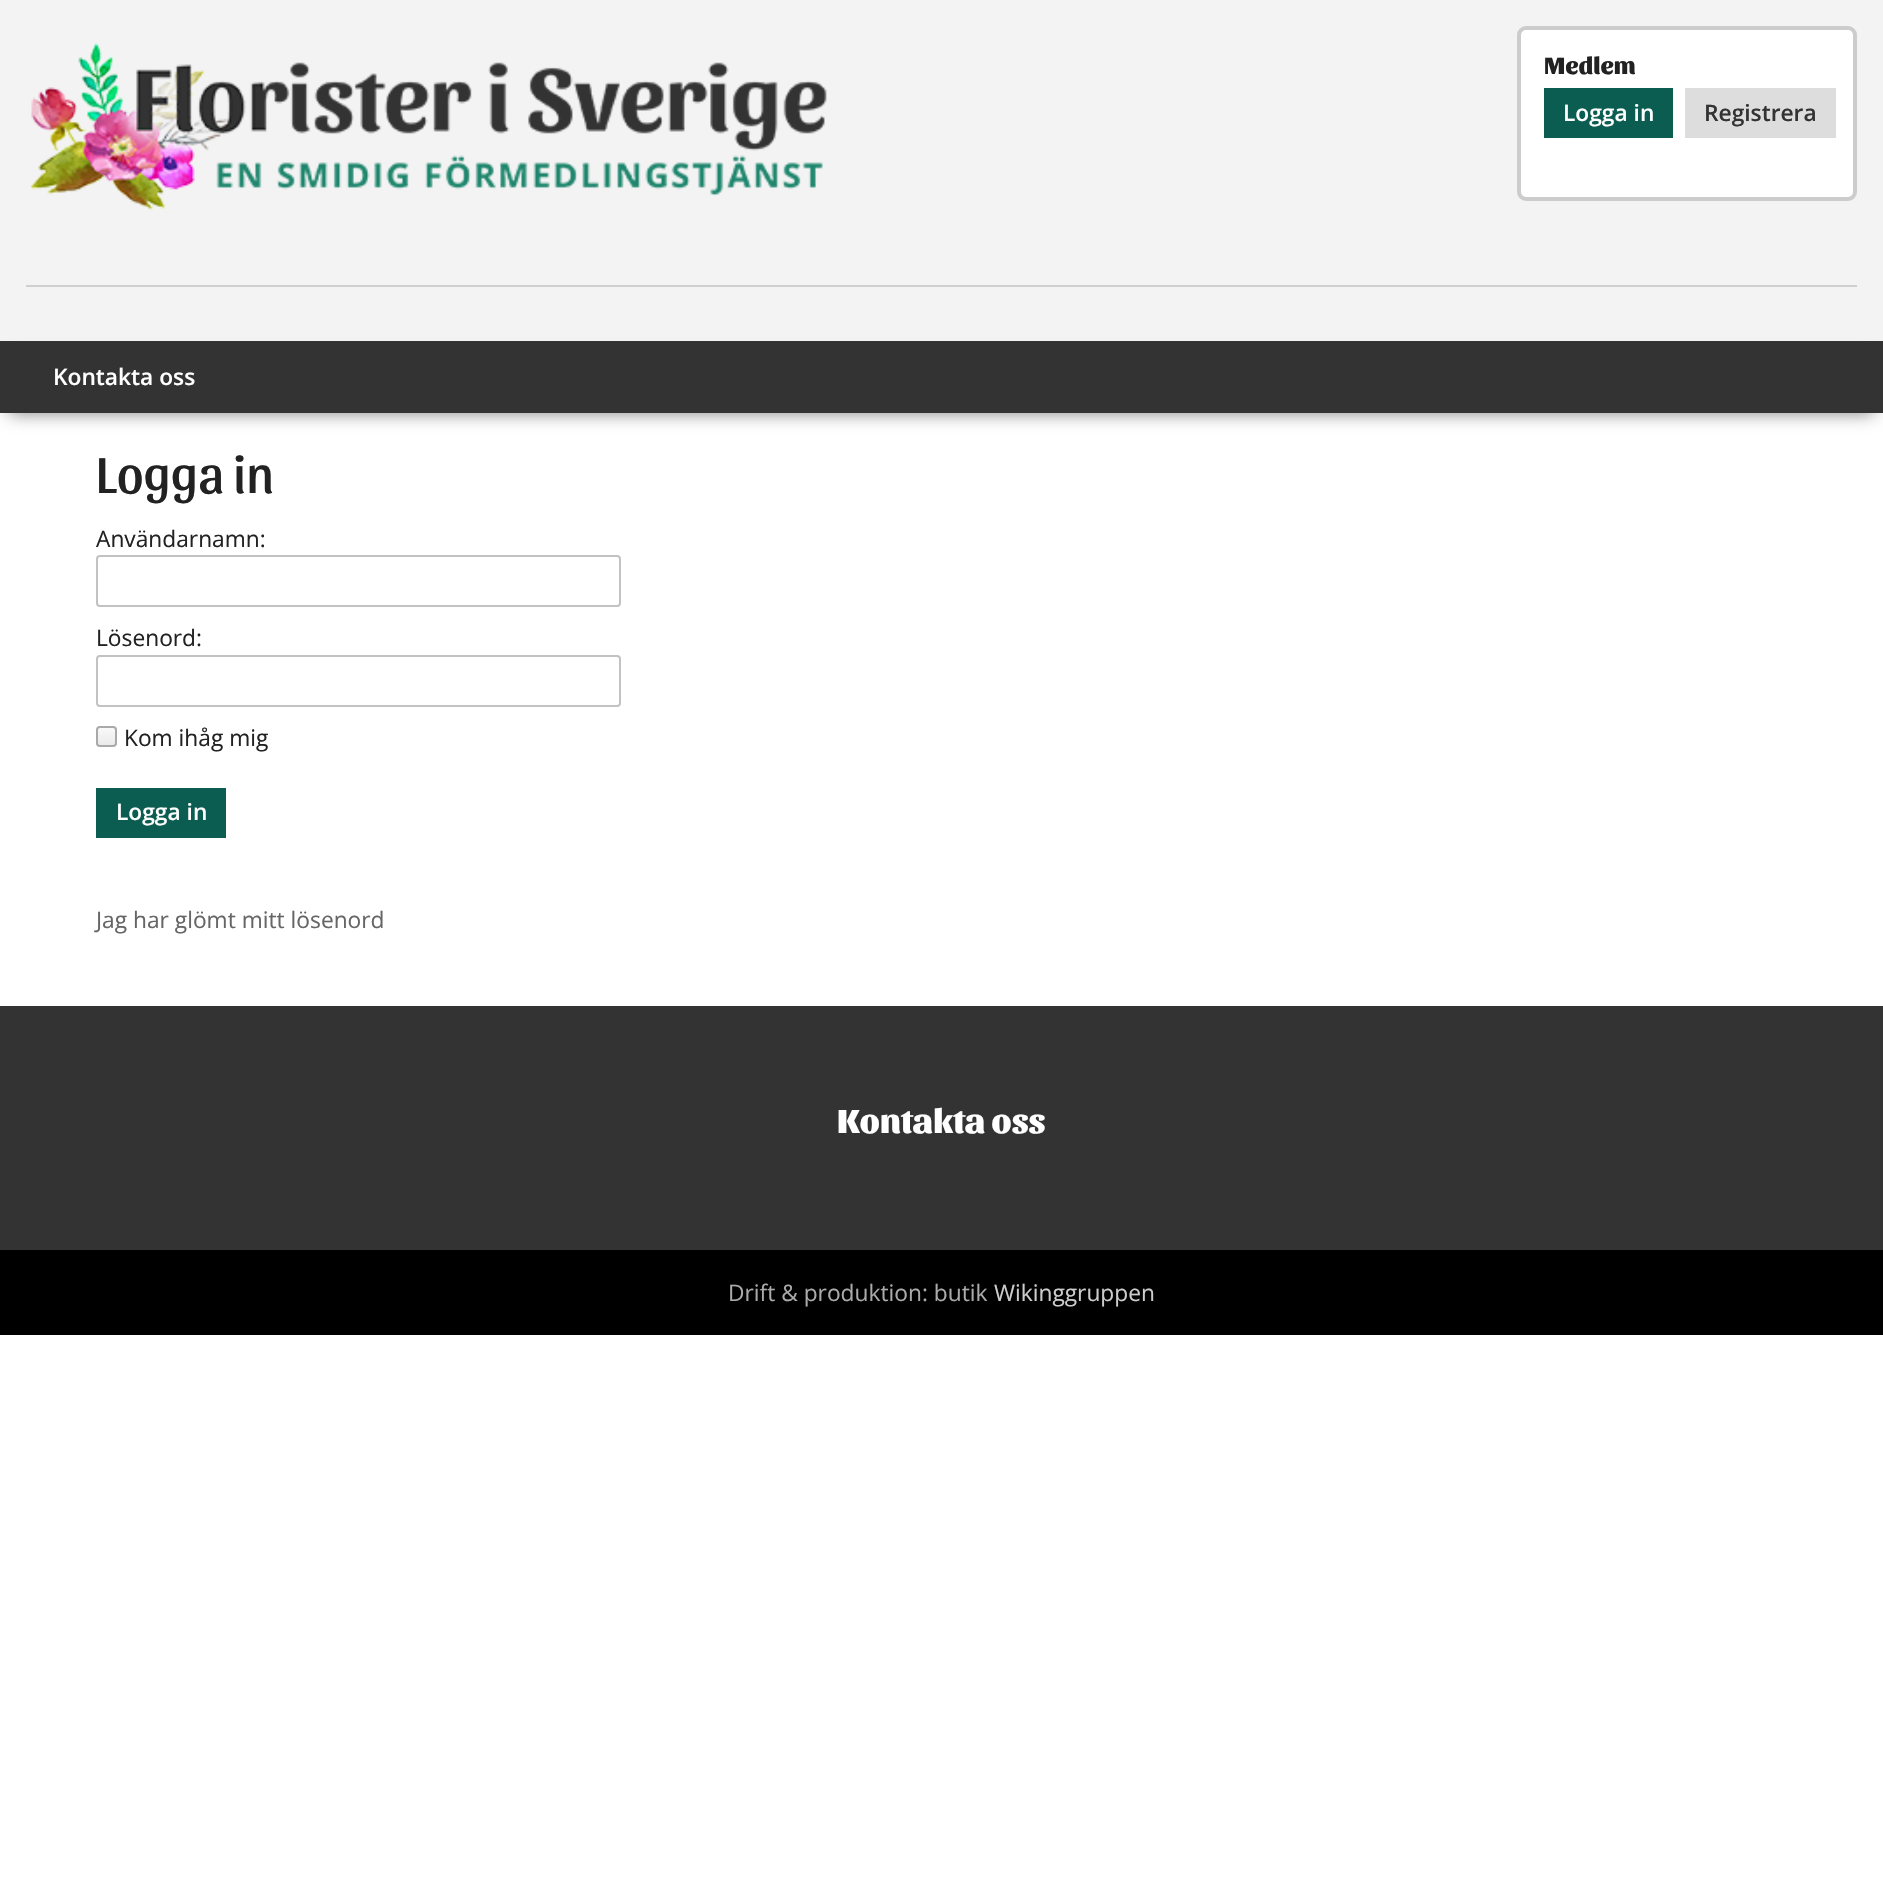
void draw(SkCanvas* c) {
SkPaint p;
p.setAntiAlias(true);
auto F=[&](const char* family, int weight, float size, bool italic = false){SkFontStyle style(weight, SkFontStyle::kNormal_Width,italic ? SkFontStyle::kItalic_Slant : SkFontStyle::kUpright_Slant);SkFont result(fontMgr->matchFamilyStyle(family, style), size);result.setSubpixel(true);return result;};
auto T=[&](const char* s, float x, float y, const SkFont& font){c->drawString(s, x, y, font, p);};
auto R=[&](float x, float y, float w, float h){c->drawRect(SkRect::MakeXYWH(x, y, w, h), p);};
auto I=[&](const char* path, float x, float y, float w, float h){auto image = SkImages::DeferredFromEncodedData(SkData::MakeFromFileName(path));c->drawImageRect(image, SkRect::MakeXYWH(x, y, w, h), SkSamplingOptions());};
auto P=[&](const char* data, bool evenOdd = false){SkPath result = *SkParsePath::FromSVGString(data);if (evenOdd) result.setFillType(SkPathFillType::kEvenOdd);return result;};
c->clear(0xffffffff);
p.setColor(0xfff3f3f3);
R(0,0,1883,341);
I("1.png",29,43,798,167);
p.setColor(0xffffffff);
c->drawRoundRect(SkRect::MakeXYWH(1519,28,336,171),7,7,p);
p.setStroke(true);
p.setStrokeWidth(4);
p.setColor(0xffcccccc);
c->drawRoundRect(SkRect::MakeXYWH(1519,28,336,171),7,7,p);
auto f1 = F("Sansita",800,24.5);
p.setStroke(false);
p.setColor(0xff222222);
T("Medlem",1544,74,f1);
p.setColor(0xff0a5d50);
R(1544,88,129,50);
auto f2 = F("Open Sans",600,22.75);
p.setColor(0xffffffff);
T("Logga in",1563,121,f2);
p.setColor(0xffdddddd);
R(1685,88,151,50);
p.setColor(0xff333333);
T("Registrera",1704,121,f2);
p.setColor(0xffcfcfcf);
R(26,285,1831,2);
p.setColor(0x80000000);
p.setMaskFilter(SkMaskFilter::MakeBlur(kNormal_SkBlurStyle, 9));
c->drawRect(SkRect::MakeXYWH(9,359,1865,54),p);
p.setMaskFilter(nullptr);
p.setColor(0xff333333);
R(0,341,1883,72);
p.setColor(0xffffffff);
T("Kontakta oss",53,385,f2);
auto f3 = F("Sansita",400,52.5);
p.setColor(0xff222222);
T("Logga in",96,493,f3);
auto f4 = F("Open Sans",400,22.75);
T("Användarnamn:",96,547,f4);
p.setStroke(true);
p.setStrokeWidth(2);
p.setColor(0xffc2c2c2);
c->drawRoundRect(SkRect::MakeXYWH(97,556,523,50),3,3,p);
p.setStroke(false);
p.setColor(0xff222222);
T("Lösenord:",96,646,f4);
p.setStroke(true);
p.setColor(0xffc2c2c2);
c->drawRoundRect(SkRect::MakeXYWH(97,656,523,50),3,3,p);
c->save();
c->clipPath(P("M100 726h13c2 0 4 2 4 4v13c0 2-2 4-4 4h-13c-2 0-4-2-4-4v-13c0-2 2-4 4-4z"),true);
p.setStroke(false);
{
const SkColor colors[] = {0xfff9f9f9,0xffe9e9e9};
const float stops[] = {0,1};
const SkPoint ends[] = {{107,728}, {107,746}};
p.setShader(SkGradientShader::MakeLinear(ends, colors, stops, 2, SkTileMode::kClamp));
p.setAlpha(255);
}
R(96,728,21,18);
c->restore();
p.setStroke(true);
p.setShader(nullptr);
p.setColor(0xffa9a9a9);
c->drawRoundRect(SkRect::MakeXYWH(97,727,19,19),3,3,p);
p.setStroke(false);
p.setColor(0xff222222);
T("Kom ihåg mig",124,746,f4);
p.setColor(0xff0a5d50);
R(96,788,130,50);
p.setColor(0xffffffff);
T("Logga in",116,820,f2);
p.setColor(0xff666666);
T("Jag har glömt mitt lösenord",96,928,f4);
p.setColor(0xff333333);
R(0,1006,1883,244);
auto f5 = F("Sansita",800,35);
p.setColor(0xffffffff);
T("Kontakta oss",837,1133,f5);
p.setColor(0xff000000);
R(0,1250,1883,85);
p.setColor(0xffaaaaaa);
T("Drift & produktion: butik",728,1301,f4);
p.setColor(0xffcccccc);
T("Wikinggruppen",994,1301,f4);
}
